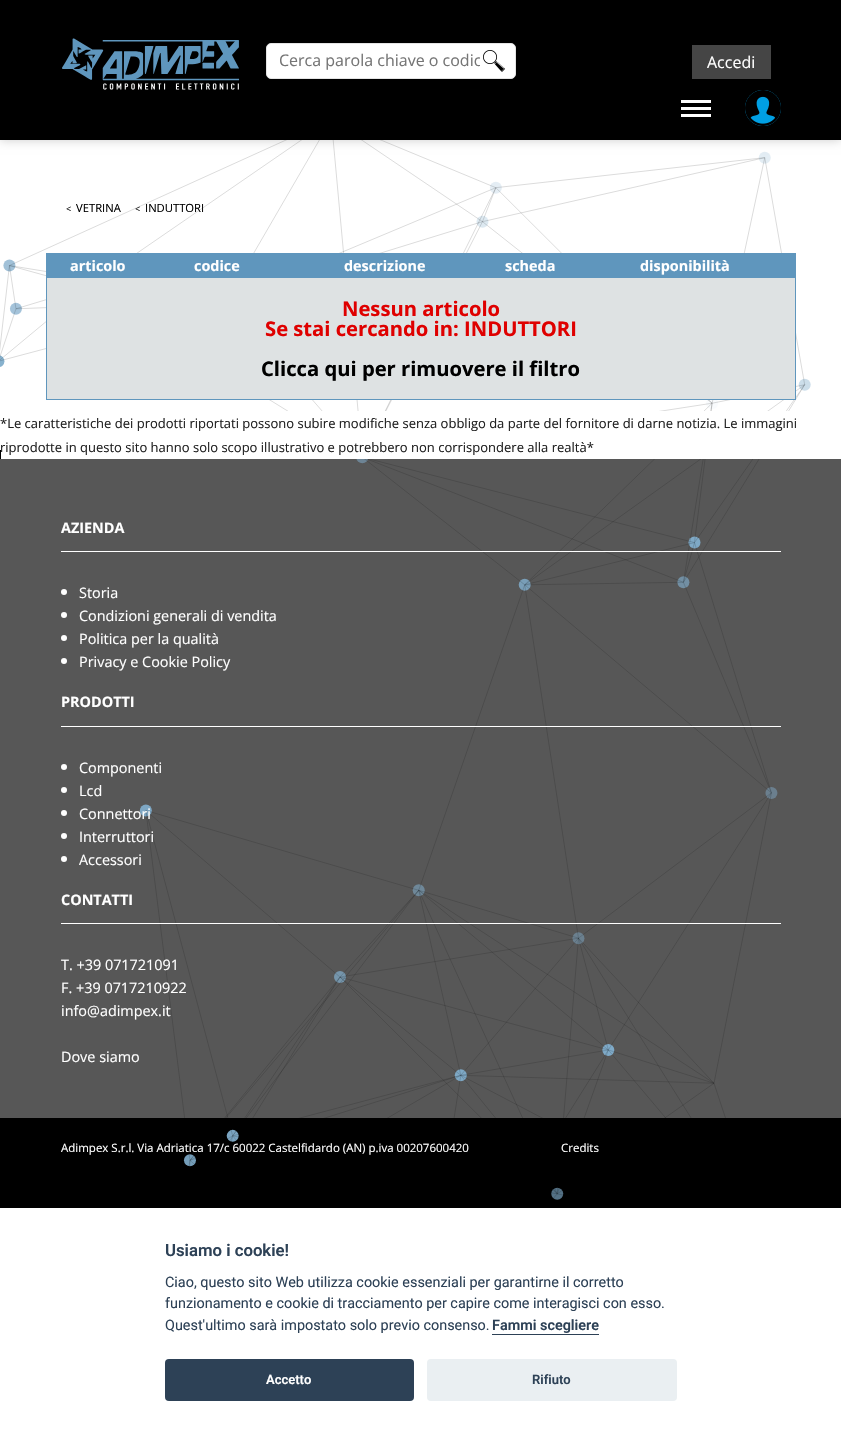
void draw(SkCanvas* c) {
SkPaint p;
p.setAntiAlias(true);
auto F=[&](const char* family, int weight, float size, bool italic = false){SkFontStyle style(weight, SkFontStyle::kNormal_Width,italic ? SkFontStyle::kItalic_Slant : SkFontStyle::kUpright_Slant);SkFont result(fontMgr->matchFamilyStyle(family, style), size);result.setSubpixel(true);return result;};
auto T=[&](const char* s, float x, float y, const SkFont& font){c->drawString(s, x, y, font, p);};
auto R=[&](float x, float y, float w, float h){c->drawRect(SkRect::MakeXYWH(x, y, w, h), p);};
auto Q=[&](float x, float y, float w, float h, float radius){c->drawRoundRect(SkRect::MakeXYWH(x, y, w, h), radius, radius, p);};
auto I=[&](const char* path, float x, float y, float w, float h){auto image = SkImages::DeferredFromEncodedData(SkData::MakeFromFileName(path));c->drawImageRect(image, SkRect::MakeXYWH(x, y, w, h), SkSamplingOptions());};
c->clear(0xff000000);
p.setColor(0xffffffff);
R(0,140,841,310);
p.setColor(0xff575757);
R(0,459,841,659);
I("4.png",0,140,811,1068);
p.setColor(0x33000000);
p.setMaskFilter(SkMaskFilter::MakeBlur(kNormal_SkBlurStyle, 5));
c->drawRect(SkRect::MakeXYWH(0,0,841,140),p);
p.setMaskFilter(nullptr);
I("1.png",62,38,178,52);
p.setColor(0xffffffff);
R(681,107,30,3);
R(681,100,30,3);
R(681,114,30,3);
p.setColor(0xff009fe3);
c->drawCircle(763,108,18,p);
I("2.png",745,90,36,36);
p.setColor(0xffffffff);
c->drawRoundRect(SkRect::MakeXYWH(266.5,43.5,249,35),4.5,4.5,p);
p.setStroke(true);
p.setStrokeWidth(1);
p.setColor(0xffe4e4e4);
c->drawRoundRect(SkRect::MakeXYWH(266.5,43.5,249,35),4.5,4.5,p);
c->save();
c->clipRect(SkRect::MakeXYWH(279,49,201,22));
auto f1 = F("Open Sans",400,16);
p.setStroke(false);
p.setColor(0xff757575);
T("Cerca parola chiave o codic",279,66,f1);
c->restore();
I("3.png",483,50,22,22);
p.setColor(0xff454545);
R(692,45,79,34);
p.setColor(0xffffffff);
T("Accedi",707,68,f1);
auto f2 = F("Open Sans",400,9);
p.setColor(0xff000000);
T("<",66,212,f2);
auto f3 = F("Open Sans",400,11.25);
T("VETRINA",76,212,f3);
T("<",135,212,f2);
T("INDUTTORI",145,212,f3);
p.setColor(0xff5f96bd);
R(46,253,750,1);
R(795,253,1,147);
R(46,399,750,1);
R(46,253,1,147);
R(47,254,748,24);
auto f4 = F("Open Sans",700,14.4);
p.setColor(0xffffffff);
T("articolo",70,271,f4);
T("codice",194,271,f4);
T("descrizione",344,271,f4);
T("scheda",505,271,f4);
T("disponibilità",640,271,f4);
p.setColor(0xffdee2e3);
R(47,278,748,121);
auto f5 = F("Open Sans",700,20.2);
p.setColor(0xffdf0000);
T("Nessun articolo",342,316,f5);
T("Se stai cercando in: INDUTTORI",265,336,f5);
p.setColor(0xff000000);
T("Clicca qui per rimuovere il filtro",261,376,f5);
p.setColor(0xffffffff);
R(1,411,840,48);
auto f6 = F("Open Sans",400,13);
p.setColor(0xff222222);
T("*Le caratteristiche dei prodotti riportati possono subire modifiche senza obbligo da parte del fornitore di darne notizia. Le immagini",0,428,f6);
T("riprodotte in questo sito hanno solo scopo illustrativo e potrebbero non corrispondere alla realtà*",0,452,f6);
p.setColor(0xffffffff);
R(61,551,720,1);
T("AZIENDA",61,533,f4);
c->drawCircle(64,592,3,p);
auto f7 = F("Open Sans",400,14.4);
T("Storia",79,598,f7);
c->drawCircle(64,615,3,p);
T("Condizioni generali di vendita",79,621,f7);
c->drawCircle(64,638,3,p);
T("Politica per la qualità",79,644,f7);
c->drawCircle(64,661,3,p);
T("Privacy e Cookie Policy",79,667,f7);
R(61,726,720,1);
T("PRODOTTI",61,707,f4);
c->drawCircle(64,767,3,p);
T("Componenti",79,773,f7);
c->drawCircle(64,790,3,p);
T("Lcd",79,796,f7);
c->drawCircle(64,813,3,p);
T("Connettori",79,819,f7);
c->drawCircle(64,836,3,p);
T("Interruttori",79,842,f7);
c->drawCircle(64,859,3,p);
T("Accessori",79,865,f7);
R(61,923,720,1);
T("CONTATTI",61,905,f4);
T("T. +39 071721091",61,970,f7);
T("F. +39 0717210922",61,993,f7);
T("info@adimpex.it",61,1016,f7);
T("Dove siamo",61,1062,f7);
auto f8 = F("Open Sans",400,11.5);
T("Adimpex S.r.l. Via Adriatica 17/c 60022 Castelfidardo (AN) p.iva 00207600420",61,1152,f8);
T("Credits",561,1152,f8);
R(0,1208,841,225);
auto f9 = F("Roboto",600,16.75);
p.setColor(0xff2d4156);
T("Usiamo i cookie!",165,1256,f9);
auto f10 = F("Roboto",400,14.4);
T("Ciao, questo sito Web utilizza cookie essenziali per garantirne il corretto",165,1287,f10);
T("funzionamento e cookie di tracciamento per capire come interagisci con esso.",165,1308,f10);
T("Quest'ultimo sarà impostato solo previo consenso.",165,1330,f10);
auto f11 = F("Roboto",600,14.4);
T("Fammi scegliere",492,1330,f11);
R(492,1334,107,1);
Q(165,1359,249,42,4);
auto f12 = F("Roboto",600,13);
p.setColor(0xffffffff);
T("Accetto",266,1384,f12);
p.setColor(0xffeaeff2);
Q(427,1359,250,42,4);
p.setColor(0xff2d4156);
T("Rifiuto",532,1384,f12);
}
